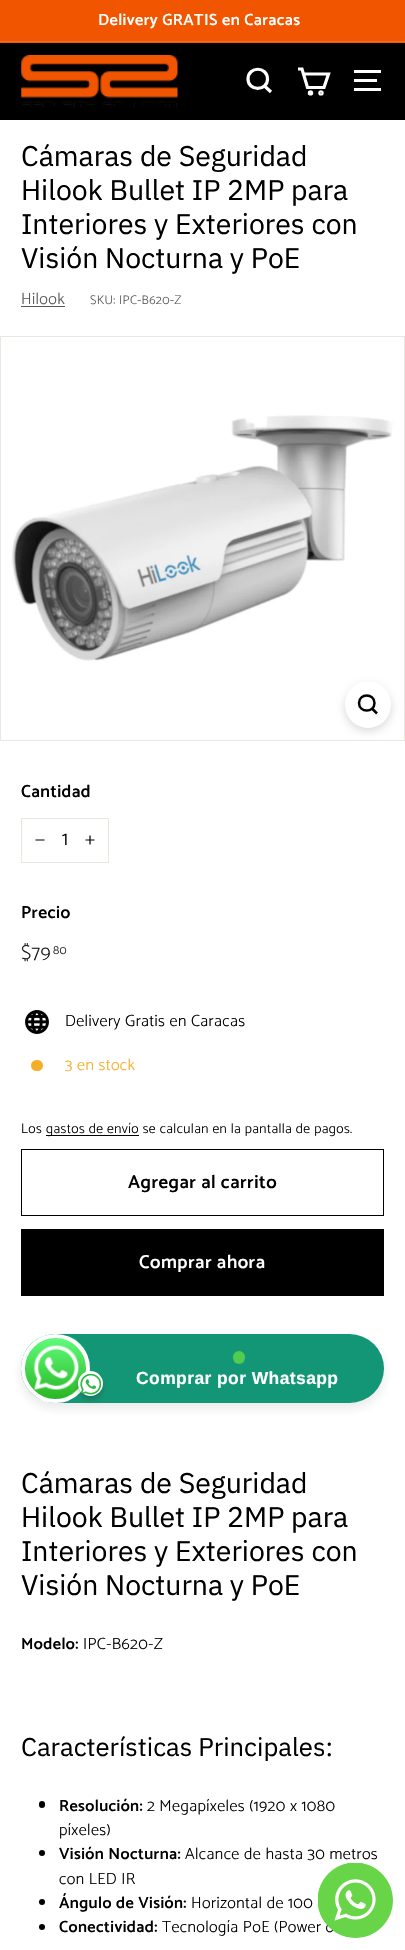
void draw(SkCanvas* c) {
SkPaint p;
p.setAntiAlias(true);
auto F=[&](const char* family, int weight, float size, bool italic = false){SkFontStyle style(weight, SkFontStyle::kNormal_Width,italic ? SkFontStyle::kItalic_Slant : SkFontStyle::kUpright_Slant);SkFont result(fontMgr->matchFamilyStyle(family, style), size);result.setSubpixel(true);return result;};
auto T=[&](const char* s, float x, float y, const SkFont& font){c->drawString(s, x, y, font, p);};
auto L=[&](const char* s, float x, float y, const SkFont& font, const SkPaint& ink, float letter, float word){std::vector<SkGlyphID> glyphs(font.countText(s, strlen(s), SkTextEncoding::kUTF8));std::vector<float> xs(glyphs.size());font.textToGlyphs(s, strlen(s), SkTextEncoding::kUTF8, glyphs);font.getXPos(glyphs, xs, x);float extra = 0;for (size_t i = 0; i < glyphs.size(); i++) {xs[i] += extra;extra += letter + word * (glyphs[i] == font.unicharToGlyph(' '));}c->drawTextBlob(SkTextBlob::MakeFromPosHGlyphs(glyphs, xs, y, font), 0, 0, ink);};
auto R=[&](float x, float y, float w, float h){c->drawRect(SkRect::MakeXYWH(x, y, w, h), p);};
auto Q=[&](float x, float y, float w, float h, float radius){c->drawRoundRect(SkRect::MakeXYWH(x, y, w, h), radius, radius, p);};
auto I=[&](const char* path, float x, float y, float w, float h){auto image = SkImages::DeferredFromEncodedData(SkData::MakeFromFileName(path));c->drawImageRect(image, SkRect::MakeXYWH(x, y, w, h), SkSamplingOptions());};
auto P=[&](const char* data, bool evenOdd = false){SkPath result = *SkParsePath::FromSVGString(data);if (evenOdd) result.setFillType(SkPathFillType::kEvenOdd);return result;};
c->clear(0xffffffff);
p.setColor(0xfff15500);
R(0,0,405,43);
auto f1 = F("Catamaran",600,16.25);
p.setColor(0xffffffff);
L("Delivery GRATIS en Caracas",98,25,f1,p,.4,0);
p.setColor(0xfff36f26);
R(0,41,405,1);
p.setColor(0xff000000);
R(0,43,405,77);
I("1.png",21,55,157,53);
p.setStroke(true);
p.setStrokeWidth(3.2);
p.setColor(0xffffffff);
c->drawPath(P("M267.5 79c0 12.5-19.5 12.5-19.5 0c0-13 19.5-13 19.5 0zm3.5 13l-6.5-6"),p);
c->drawPath(P("M303.5 74h25l-4.5 13.5h-16.5l-5.5-18.5h-4"),p);
p.setStroke(false);
c->drawCircle(310.5,92.9,1.1,p);
p.setStroke(true);
c->drawCircle(310.5,92.9,1.1,p);
c->drawCircle(321,92.9,1.1,p);
p.setStroke(false);
R(354,70,27,3);
R(354,79,23,3);
R(354,88,27,3);
auto f2 = F("IBM Plex Sans",400,28.4);
p.setColor(0xff000000);
T("Cámaras de Seguridad",21,166,f2);
T("Hilook Bullet IP 2MP para",21,200,f2);
T("Interiores y Exteriores con",21,234,f2);
T("Visión Nocturna y PoE",21,268,f2);
auto f3 = F("Catamaran",300,16.25);
p.setColor(0xff595959);
L("Hilook",21,304,f3,p,.4,0);
R(21,306,44,1);
auto f4 = F("Catamaran",300,12.5);
L("SKU: IPC-B620-Z",90,304,f4,p,.4,0);
p.setStroke(true);
p.setStrokeWidth(1);
p.setColor(0xffe8e8e1);
c->drawRect(SkRect::MakeXYWH(.5,336.5,404,404),p);
I("2.png",1,338,403,402);
p.setStroke(false);
p.setColor(0x26000000);
p.setMaskFilter(SkMaskFilter::MakeBlur(kNormal_SkBlurStyle, 4));
c->drawRoundRect(SkRect::MakeXYWH(345,685,46,46),23,23,p);
p.setMaskFilter(nullptr);
p.setColor(0xffffffff);
Q(345,681,46,47,23);
p.setStroke(true);
p.setStrokeWidth(2.5);
p.setColor(0xff000000);
c->drawPath(P("M374.5 703c0 10-15.5 10-15.5 0c0-10 15.5-10 15.5 0zm2.5 10.5l-5-5"),p);
auto f5 = F("Catamaran",600,17.5);
p.setStroke(false);
L("Cantidad",21,797,f5,p,.4,0);
p.setStroke(true);
p.setStrokeWidth(1);
p.setColor(0xffe8e8e1);
c->drawRect(SkRect::MakeXYWH(21.5,818.5,87,44),p);
auto f6 = F("Catamaran",300,20);
p.setStroke(false);
p.setColor(0xff000000);
T("1",62,845,f6);
p.setStroke(true);
p.setStrokeWidth(1.2);
c->drawPath(P("M44.5 840h-9m54.5-4.5v9m4.5-4.5h-9"),p);
p.setStroke(false);
L("Precio",21,918,f5,p,.4,0);
p.setColor(0xff1c1d1d);
L("$79",21,959,f6,p,.4,0);
auto f7 = F("Catamaran",300,12);
L("80",53,954,f7,p,.4,0);
I("3.png",25,1010,24,24);
p.setColor(0xff000000);
L("Delivery Gratis en Caracas",65,1026,f3,p,.4,0);
p.setColor(0xfff4af29);
Q(31,1060,12,11,5.5);
L("3 en stock",65,1070,f3,p,.4,0);
auto f8 = F("Catamaran",300,13.8);
p.setColor(0xff000000);
L("Los",21,1133,f8,p,.4,0);
R(46,1135,93,1);
L("gastos de envío se calculan en la pantalla de pagos.",46,1133,f8,p,.4,0);
p.setStroke(true);
p.setStrokeWidth(1);
c->drawRect(SkRect::MakeXYWH(21.5,1149.5,362,66),p);
auto f9 = F("Catamaran",600,18.75);
p.setStroke(false);
L("Agregar al carrito",128,1188,f9,p,.5,0);
R(21,1229,363,67);
p.setColor(0xffffffff);
L("Comprar ahora",139,1268,f9,p,.5,0);
p.setColor(0x17202025);
p.setMaskFilter(SkMaskFilter::MakeBlur(kNormal_SkBlurStyle, 5));
c->drawRoundRect(SkRect::MakeXYWH(20,1338,365,71),35.5,35.5,p);
p.setMaskFilter(nullptr);
p.setColor(0xff139675);
Q(21,1334,363,69,34.5);
I("4.png",24,1336,63,63);
p.setStroke(true);
p.setStrokeWidth(4);
p.setColor(0xffffffff);
c->drawCircle(55.5,1368.5,32.5,p);
p.setStroke(false);
p.setColor(0x42272626);
p.setMaskFilter(SkMaskFilter::MakeBlur(kNormal_SkBlurStyle, 2.5));
c->drawRoundRect(SkRect::MakeXYWH(78,1375,25,25),12.5,12.5,p);
p.setMaskFilter(nullptr);
p.setColor(0xffffffff);
c->drawCircle(90.5,1383.5,12.5,p);
I("5.png",80,1374,21,21);
p.setColor(0xff51cb50);
Q(233,1351,12,13,6);
auto f10 = F("Liberation Sans",700,17.5);
p.setColor(0xffffffff);
L("Comprar por Whatsapp",136,1384,f10,p,.4,0);
p.setColor(0xff000000);
T("Cámaras de Seguridad",21,1493,f2);
T("Hilook Bullet IP 2MP para",21,1527,f2);
T("Interiores y Exteriores con",21,1561,f2);
T("Visión Nocturna y PoE",21,1595,f2);
L("Modelo:",21,1649,f1,p,.4,0);
L("IPC-B620-Z",83,1649,f3,p,.4,0);
auto f11 = F("IBM Plex Sans",400,25.6);
T("Características Principales:",21,1756,f11);
Q(39,1801,6,7,3);
L("Resolución:",59,1811,f1,p,.4,0);
L("2 Megapíxeles (1920 x 1080",147,1811,f3,p,.4,0);
L("píxeles)",59,1835,f3,p,.4,0);
c->drawCircle(42,1853,3,p);
L("Visión Nocturna:",59,1859,f1,p,.4,0);
L("Alcance de hasta 30 metros",185,1859,f3,p,.4,0);
L("con LED IR",59,1884,f3,p,.4,0);
c->drawCircle(42,1902,3,p);
L("Ángulo de Visión:",59,1908,f1,p,.4,0);
L("Horizontal de 100",191,1908,f3,p,.4,0);
c->drawCircle(42,1927,3,p);
L("Conectividad:",59,1932,f1,p,.4,0);
L("Tecnología PoE (Power o",162,1932,f3,p,.4,0);
p.setColor(0xff68d549);
c->drawCircle(355.5,1900.5,37.5,p);
I("6.png",318,1863,75,75);
}
